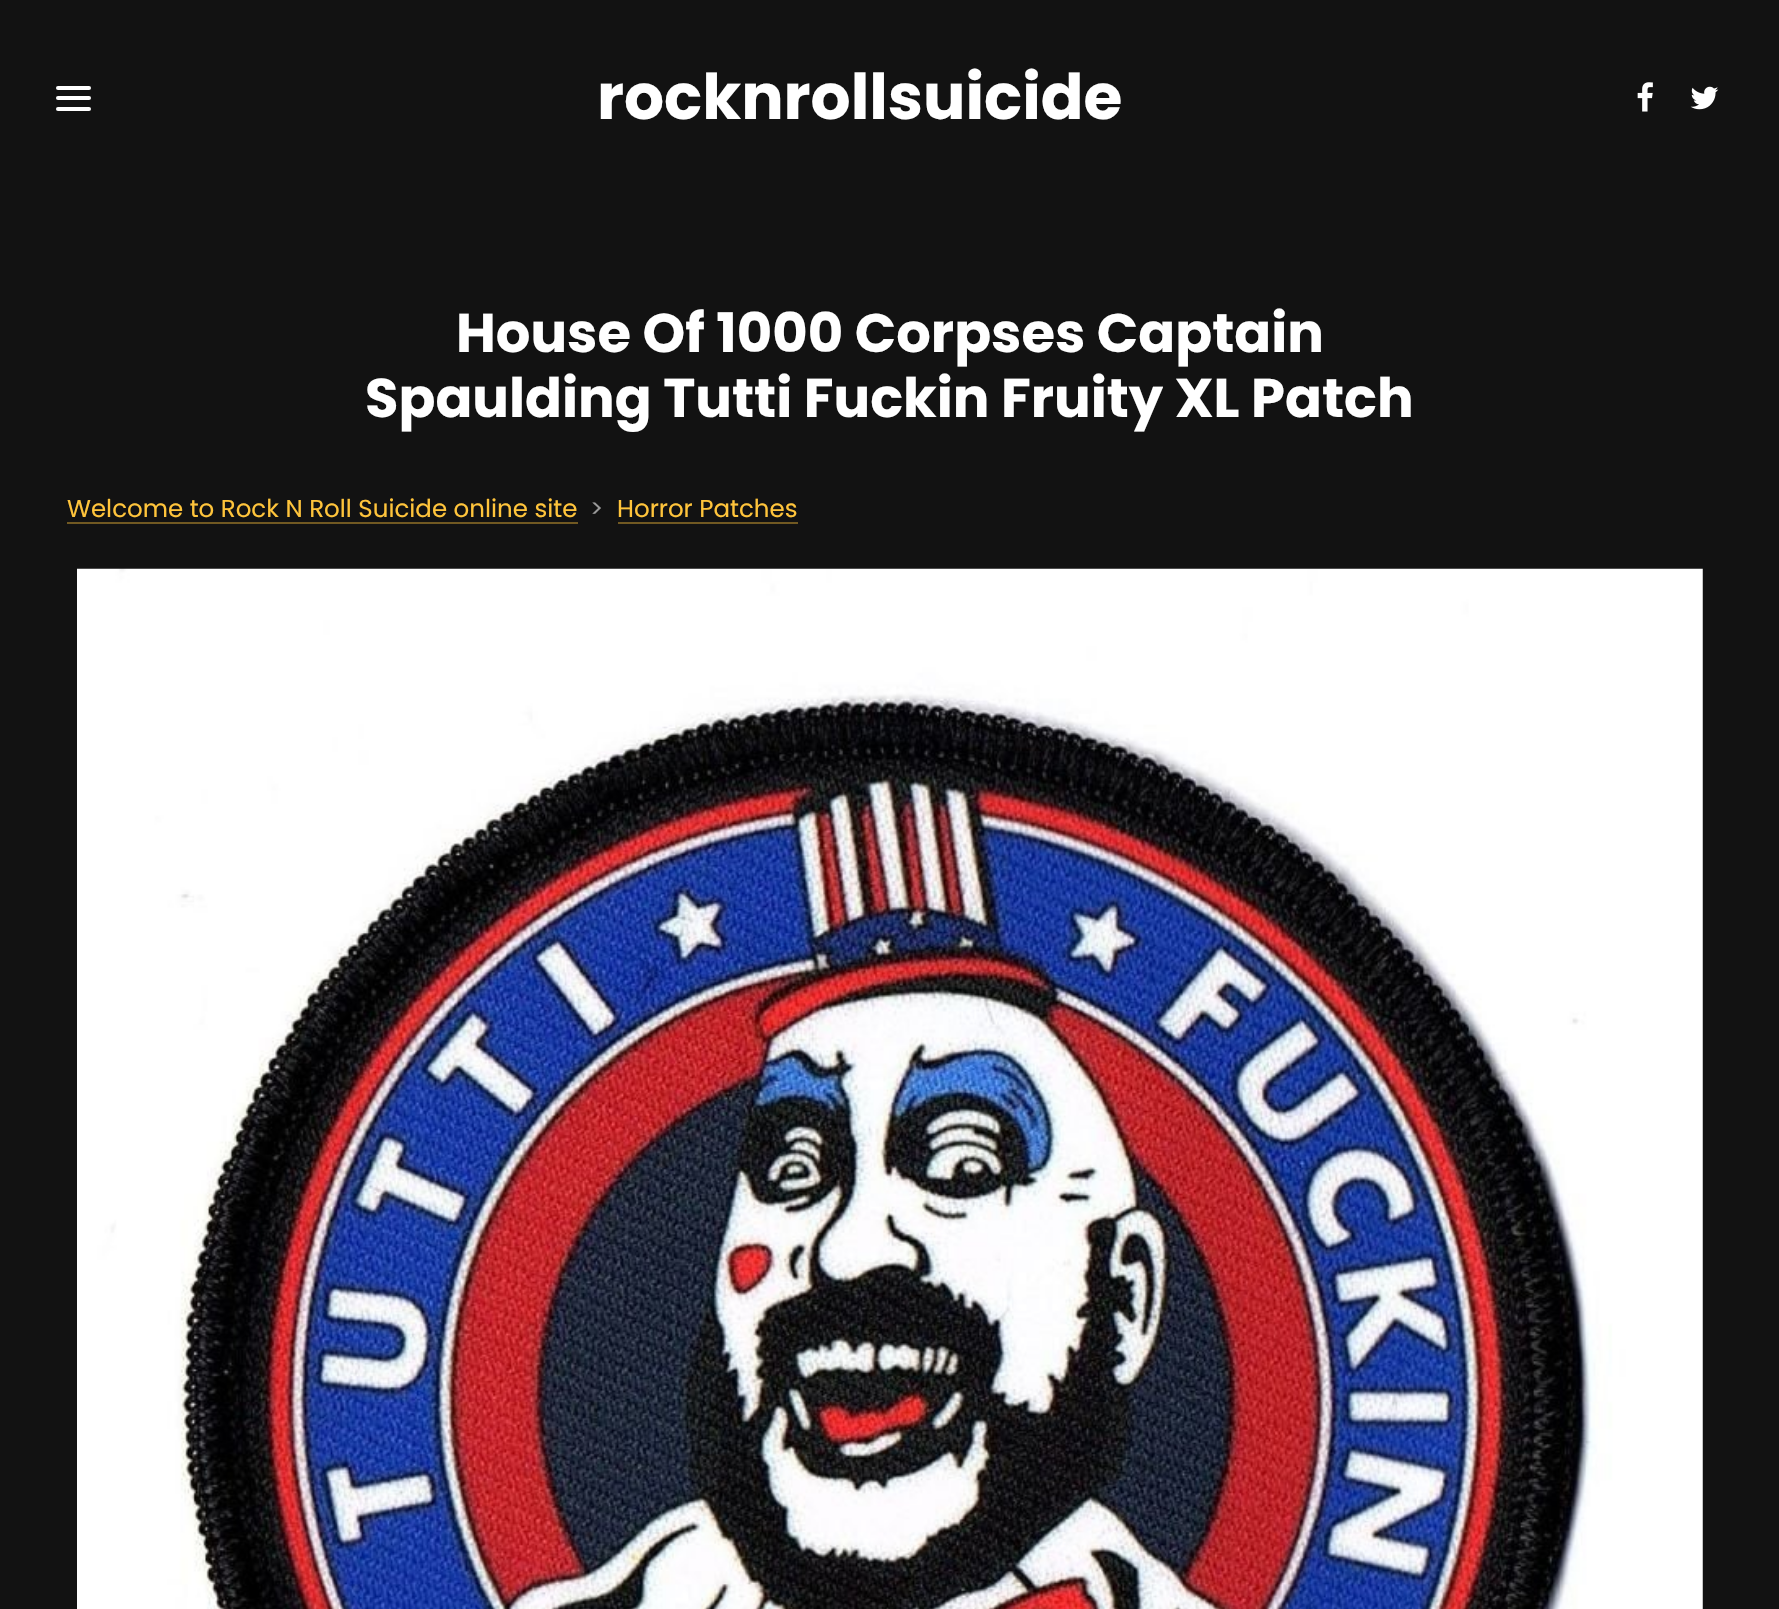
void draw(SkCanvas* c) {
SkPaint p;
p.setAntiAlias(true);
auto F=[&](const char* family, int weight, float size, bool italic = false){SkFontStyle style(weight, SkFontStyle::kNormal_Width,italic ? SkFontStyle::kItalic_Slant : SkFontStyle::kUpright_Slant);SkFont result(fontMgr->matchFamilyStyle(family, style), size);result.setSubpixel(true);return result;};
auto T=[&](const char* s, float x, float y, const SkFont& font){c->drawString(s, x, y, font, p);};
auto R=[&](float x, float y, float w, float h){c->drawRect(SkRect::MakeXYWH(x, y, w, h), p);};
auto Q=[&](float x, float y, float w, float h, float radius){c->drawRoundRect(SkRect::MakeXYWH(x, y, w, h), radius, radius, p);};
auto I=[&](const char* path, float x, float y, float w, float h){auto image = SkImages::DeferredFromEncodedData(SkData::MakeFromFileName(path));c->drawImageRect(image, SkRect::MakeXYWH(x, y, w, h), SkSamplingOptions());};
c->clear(0xff121212);
p.setColor(0xffffffff);
Q(56,96,35,4,2);
Q(56,86,35,4,2);
Q(56,107,35,4,2);
auto f1 = F("Poppins",700,63);
T("rocknrollsuicide",597,119,f1);
I("1.png",1637,82,16,30);
I("2.png",1690,86,29,24);
auto f2 = F("Poppins",700,54.4);
T("House Of 1000 Corpses Captain",456,352,f2);
T("Spaulding Tutti Fuckin Fruity XL Patch",365,417,f2);
auto f3 = F("Poppins",400,24.5);
p.setColor(0xffffc43b);
T("Welcome to Rock N Roll Suicide online site",67,517,f3);
p.setColor(0xff715922);
R(67,522,511,2);
p.setColor(0xff999999);
T(">",590,517,f3);
p.setColor(0xffffc43b);
T("Horror Patches",617,517,f3);
p.setColor(0xff715922);
R(618,522,180,2);
I("3.png",77,568,1626,1041);
}
